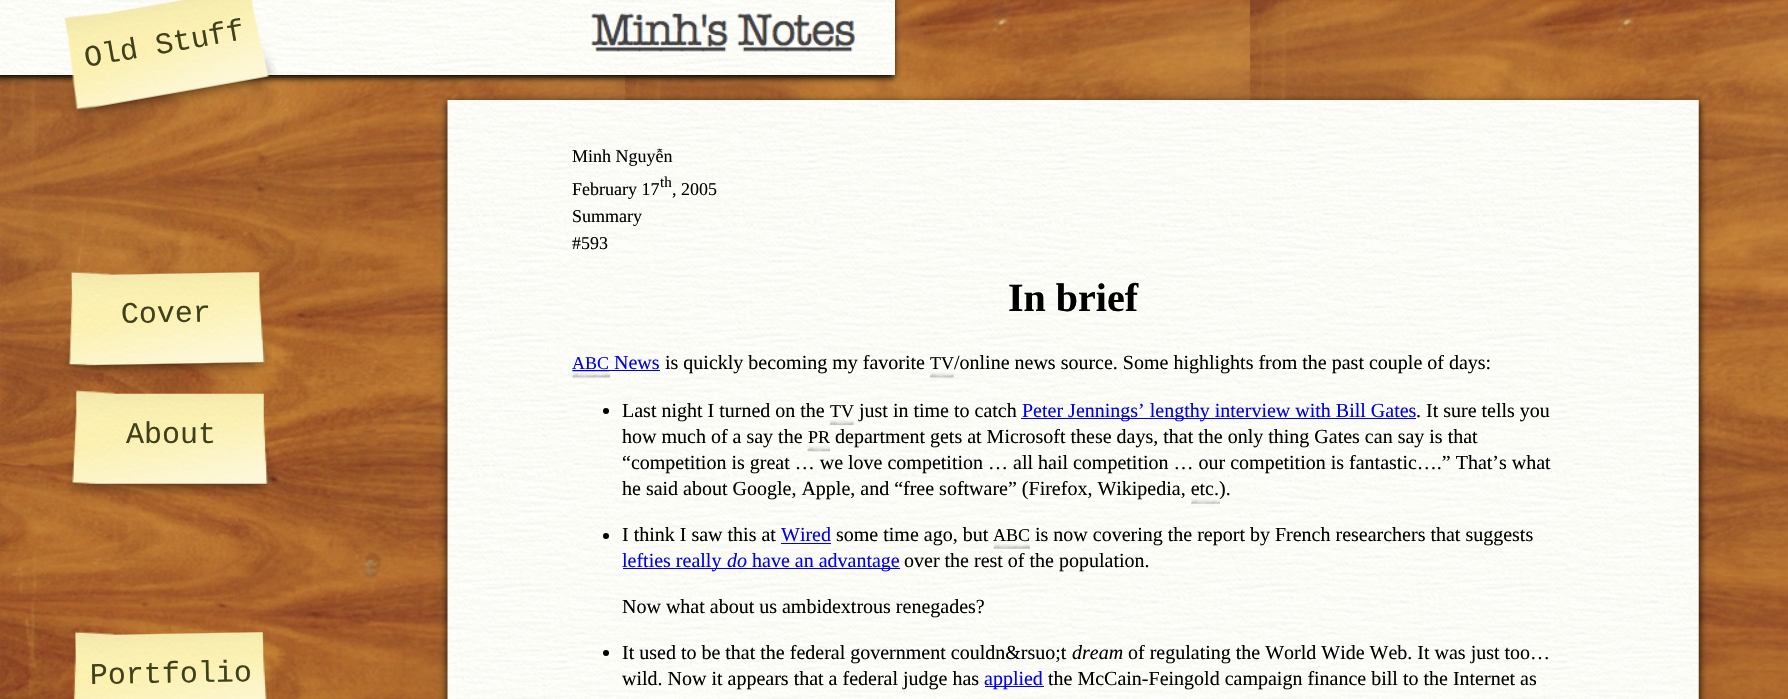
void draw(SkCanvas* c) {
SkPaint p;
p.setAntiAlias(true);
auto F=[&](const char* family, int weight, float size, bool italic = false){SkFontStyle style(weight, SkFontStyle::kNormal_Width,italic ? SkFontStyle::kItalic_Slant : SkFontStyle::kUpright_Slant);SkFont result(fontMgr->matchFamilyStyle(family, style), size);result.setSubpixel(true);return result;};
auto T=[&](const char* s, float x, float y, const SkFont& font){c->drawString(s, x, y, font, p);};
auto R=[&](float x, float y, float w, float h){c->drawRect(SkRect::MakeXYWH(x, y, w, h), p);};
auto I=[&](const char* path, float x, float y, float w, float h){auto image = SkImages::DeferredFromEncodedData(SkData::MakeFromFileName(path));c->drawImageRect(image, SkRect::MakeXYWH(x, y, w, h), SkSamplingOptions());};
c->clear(0xffffffff);
I("1.png",0,0,1788,699);
p.setColor(0xff000000);
p.setMaskFilter(SkMaskFilter::MakeBlur(kNormal_SkBlurStyle, 3));
c->drawRect(SkRect::MakeXYWH(-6,-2,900,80),p);
p.setMaskFilter(nullptr);
I("2.png",0,0,895,75);
I("3.png",591,13,264,39);
I("4.png",64,0,212,119);
auto f1 = F("Liberation Mono",400,30);
p.setColor(0xff40401b);
c->save();
c->rotate(-10,86,67);
T("Old Stuff",86,67,f1);
c->restore();
I("5.png",63,271,209,106);
c->save();
c->rotate(-1,121,323);
T("Cover",121,323,f1);
c->restore();
I("6.png",66,390,208,106);
T("About",126,443,f1);
I("7.png",73,631,196,68);
c->save();
c->rotate(-1,90,684);
T("Portfolio",90,684,f1);
c->restore();
p.setColor(0xff000000);
p.setMaskFilter(SkMaskFilter::MakeBlur(kNormal_SkBlurStyle, 4));
c->drawRect(SkRect::MakeXYWH(448,103,1251,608),p);
p.setMaskFilter(nullptr);
I("8.png",447,100,1252,599);
auto f2 = F("Liberation Serif",400,18);
T("Minh Nguyễn",572,162,f2);
T("February 17",572,195,f2);
auto f3 = F("Liberation Serif",400,15);
T("th",660,187,f3);
T(", 2005",672,195,f2);
T("Summary",572,222,f2);
T("#593",572,249,f2);
auto f4 = F("Liberation Serif",700,40);
T("In brief",1008,311,f4);
p.setColor(0xff0000ee);
T("ABC",572,369,f2);
I("9.png",572,370,38,8);
R(609,370,51,1);
auto f5 = F("Liberation Serif",400,20);
T("News",614,369,f5);
p.setColor(0xff000000);
T("is quickly becoming my favorite",665,369,f5);
T("TV",930,369,f2);
I("10.png",930,372,24,6);
T("/online news source. Some highlights from the past couple of days:",954,369,f5);
c->drawCircle(606,411,3,p);
T("Last night I turned on the",622,417,f5);
T("TV",830,417,f2);
T("just in time to catch",859,417,f5);
p.setColor(0xff0000ee);
R(1021,418,395,1);
T("Peter Jennings’ lengthy interview with Bill Gates",1022,417,f5);
p.setColor(0xff000000);
T(". It sure tells you",1416,417,f5);
I("11.png",830,420,24,5);
T("how much of a say the",622,443,f5);
T("PR",808,443,f2);
T("department gets at Microsoft these days, that the only thing Gates can say is that",835,443,f5);
I("12.png",807,446,23,6);
T("“competition is great … we love competition … all hail competition … our competition is fantastic….” That’s what",622,469,f5);
T("he said about Google, Apple, and “free software” (Firefox, Wikipedia, etc.).",622,495,f5);
I("13.png",1191,498,29,6);
c->drawCircle(606,536,3,p);
T("I think I saw this at",622,541,f5);
p.setColor(0xff0000ee);
T("Wired",781,541,f5);
R(781,543,50,1);
p.setColor(0xff000000);
T("some time ago, but",836,541,f5);
T("ABC",993,541,f2);
T("is now covering the report by French researchers that suggests",1035,541,f5);
I("14.png",993,544,37,5);
p.setColor(0xff0000ee);
R(623,568,277,1);
T("lefties really",622,567,f5);
auto f6 = F("Liberation Serif",400,20,true);
T("do",727,567,f6);
T("have an advantage",752,567,f5);
p.setColor(0xff000000);
T("over the rest of the population.",904,567,f5);
T("Now what about us ambidextrous renegades?",622,613,f5);
c->drawCircle(606,653,3,p);
T("It used to be that the federal government couldn&rsuo;t",622,659,f5);
T("dream",1072,659,f6);
T("of regulating the World Wide Web. It was just too…",1128,659,f5);
T("wild. Now it appears that a federal judge has",622,685,f5);
p.setColor(0xff0000ee);
R(985,686,59,1);
T("applied",984,685,f5);
p.setColor(0xff000000);
T("the McCain-Feingold campaign finance bill to the Internet as",1048,685,f5);
}
